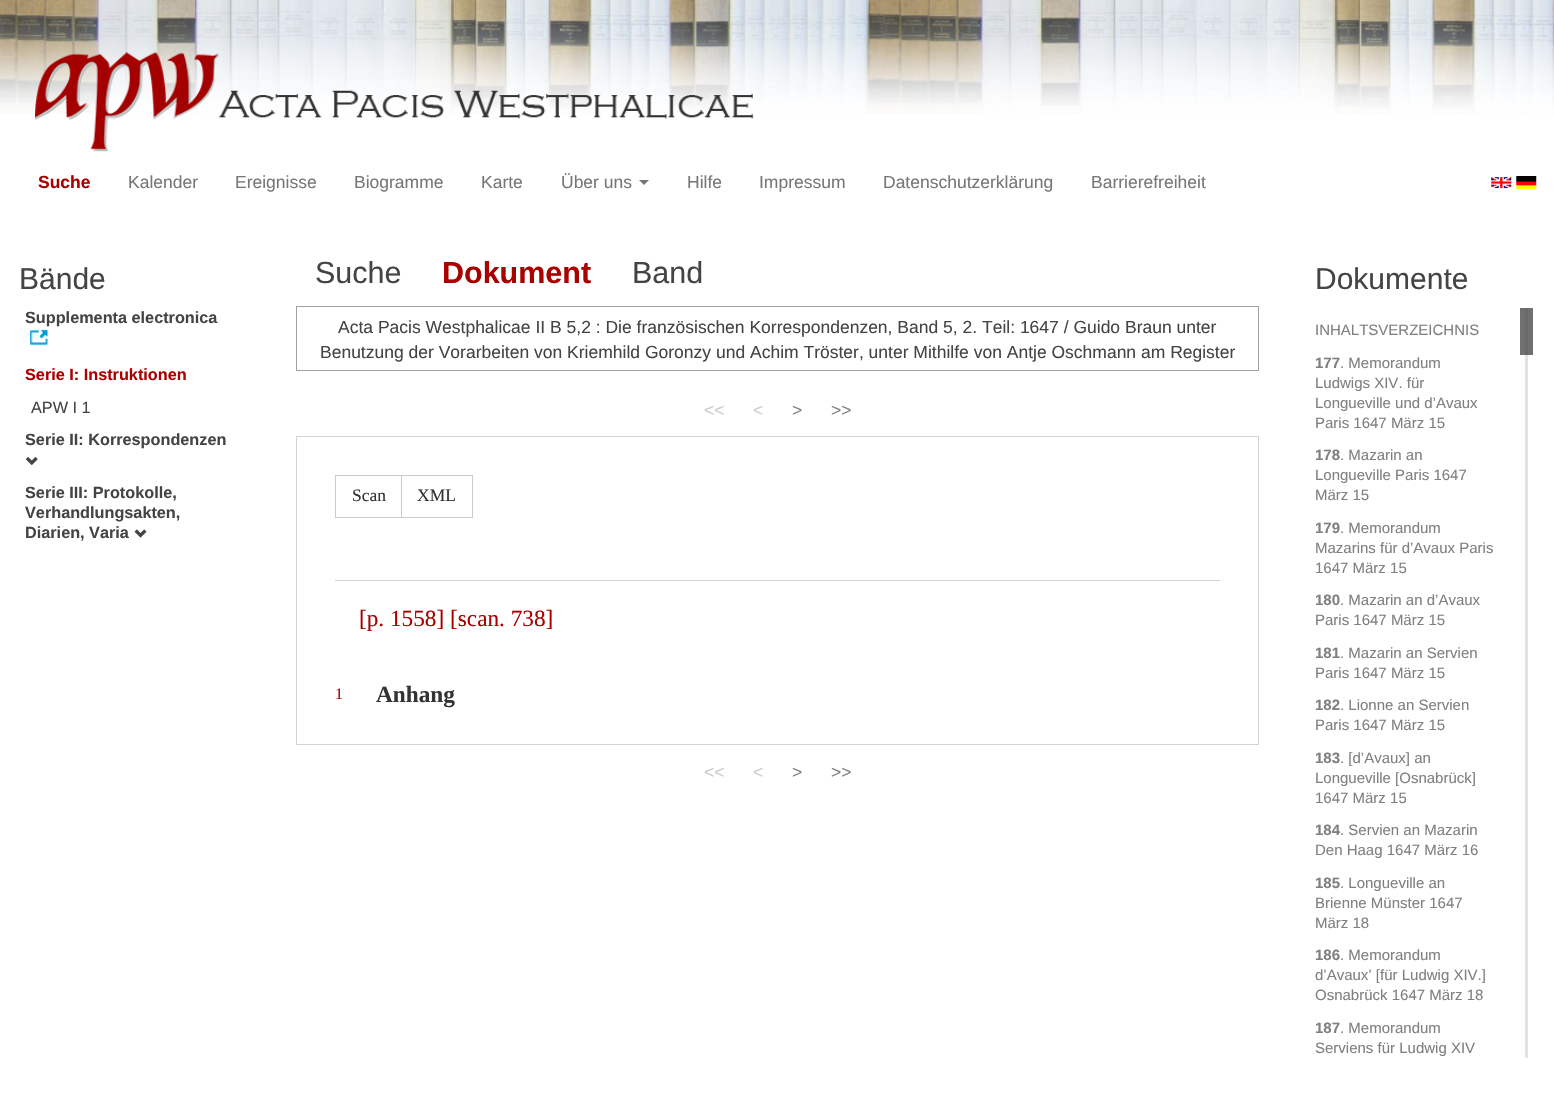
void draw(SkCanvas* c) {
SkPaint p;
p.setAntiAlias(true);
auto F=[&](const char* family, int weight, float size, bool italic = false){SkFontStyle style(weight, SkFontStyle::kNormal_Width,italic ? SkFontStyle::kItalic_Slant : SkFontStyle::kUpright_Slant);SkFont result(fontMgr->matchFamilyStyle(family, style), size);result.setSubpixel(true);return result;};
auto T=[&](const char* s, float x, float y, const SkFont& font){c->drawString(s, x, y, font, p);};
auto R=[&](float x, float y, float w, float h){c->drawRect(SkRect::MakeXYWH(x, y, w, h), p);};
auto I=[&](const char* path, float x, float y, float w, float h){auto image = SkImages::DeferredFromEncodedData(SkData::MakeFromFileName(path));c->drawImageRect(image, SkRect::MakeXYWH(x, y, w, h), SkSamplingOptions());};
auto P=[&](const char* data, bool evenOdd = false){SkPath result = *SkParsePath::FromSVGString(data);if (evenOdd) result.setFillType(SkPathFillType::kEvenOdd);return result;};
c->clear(0xffffffff);
p.setColor(0xff707070);
R(1520,308,13,47);
I("1.png",0,0,1554,114);
I("2.png",35,52,719,100);
auto f1 = F("Liberation Sans",700,17.5);
p.setColor(0xffaa0000);
T("Suche",38,188,f1);
auto f2 = F("Liberation Sans",400,17.5);
p.setColor(0xff777777);
T("Kalender",128,188,f2);
T("Ereignisse",235,188,f2);
T("Biogramme",354,188,f2);
T("Karte",481,188,f2);
T("Über uns",561,188,f2);
c->drawPath(P("M639 180h10l-5 5z"),p);
T("Hilfe",687,188,f2);
T("Impressum",759,188,f2);
T("Datenschutzerklärung",883,188,f2);
T("Barrierefreiheit",1091,188,f2);
I("3.png",1491,177,21,12);
I("4.png",1516,176,21,14);
auto f3 = F("Liberation Sans",400,30);
p.setColor(0xff444444);
T("Bände",19,289,f3);
auto f4 = F("Liberation Sans",700,16.25);
T("Supplementa electronica",25,323,f4);
I("5.png",29,329,19,17);
p.setColor(0xffaa0000);
T("Serie I: Instruktionen",25,380,f4);
auto f5 = F("Liberation Sans",400,16.25);
p.setColor(0xff444444);
T("APW I 1",31,413,f5);
T("Serie II: Korrespondenzen",25,445,f4);
I("6.png",25,456,13,10);
T("Serie III: Protokolle,",25,498,f4);
T("Verhandlungsakten,",25,518,f4);
T("Diarien, Varia",25,538,f4);
I("7.png",134,529,13,9);
auto f6 = F("Liberation Sans",400,30.5);
T("Suche",315,283,f6);
auto f7 = F("Liberation Sans",700,30.5);
p.setColor(0xffaa0000);
T("Dokument",442,283,f7);
p.setColor(0xff444444);
T("Band",632,283,f6);
p.setStroke(true);
p.setStrokeWidth(1);
p.setColor(0xffa0a0a0);
c->drawRect(SkRect::MakeXYWH(296.5,306.5,962,64),p);
p.setStroke(false);
p.setColor(0xff444444);
T("Acta Pacis Westphalicae II B 5,2 : Die französischen Korrespondenzen, Band 5, 2. Teil: 1647 / Guido Braun unter",338,333,f2);
T("Benutzung der Vorarbeiten von Kriemhild Goronzy und Achim Tröster, unter Mithilfe von Antje Oschmann am Register",320,358,f2);
p.setColor(0xffcccccc);
T("<<",704,416,f2);
T("<",753,416,f2);
p.setColor(0xff808080);
T(">",792,416,f2);
T(">>",831,416,f2);
p.setStroke(true);
p.setColor(0xffd3d3d3);
c->drawRect(SkRect::MakeXYWH(296.5,436.5,962,308),p);
p.setColor(0xffcccccc);
c->drawRect(SkRect::MakeXYWH(335.5,475.5,67,42),p);
auto f8 = F("Liberation Serif",400,17.5);
p.setStroke(false);
p.setColor(0xff333333);
T("Scan",352,501,f8);
p.setColor(0xffffffff);
R(402,476,1,41);
p.setStroke(true);
p.setColor(0xffcccccc);
c->drawRect(SkRect::MakeXYWH(401.5,475.5,71,42),p);
p.setStroke(false);
p.setColor(0xff333333);
T("XML",417,501,f8);
p.setColor(0xffd3d3d3);
R(335,580,885,1);
auto f9 = F("Liberation Serif",400,23.25);
p.setColor(0xffaa0000);
T("[p. 1558] [scan. 738]",359,626,f9);
auto f10 = F("Liberation Serif",400,16);
T("1",335,699,f10);
auto f11 = F("Liberation Serif",700,23.25);
p.setColor(0xff333333);
T("Anhang",376,702,f11);
p.setColor(0xffcccccc);
T("<<",704,778,f2);
T("<",753,778,f2);
p.setColor(0xff808080);
T(">",792,778,f2);
T(">>",831,778,f2);
p.setColor(0xff444444);
T("Dokumente",1315,289,f3);
auto f12 = F("Liberation Sans",400,15);
p.setColor(0xff808080);
T("INHALTSVERZEICHNIS",1315,335,f12);
auto f13 = F("Liberation Sans",700,15);
T("177",1315,368,f13);
T(". Memorandum",1340,368,f12);
T("Ludwigs XIV. für",1315,388,f12);
T("Longueville und d’Avaux",1315,408,f12);
T("Paris 1647 März 15",1315,428,f12);
T("178",1315,460,f13);
T(". Mazarin an",1340,460,f12);
T("Longueville Paris 1647",1315,480,f12);
T("März 15",1315,500,f12);
T("179",1315,533,f13);
T(". Memorandum",1340,533,f12);
T("Mazarins für d’Avaux Paris",1315,553,f12);
T("1647 März 15",1315,573,f12);
T("180",1315,605,f13);
T(". Mazarin an d’Avaux",1340,605,f12);
T("Paris 1647 März 15",1315,625,f12);
T("181",1315,658,f13);
T(". Mazarin an Servien",1340,658,f12);
T("Paris 1647 März 15",1315,678,f12);
T("182",1315,710,f13);
T(". Lionne an Servien",1340,710,f12);
T("Paris 1647 März 15",1315,730,f12);
T("183",1315,763,f13);
T(". [d’Avaux] an",1340,763,f12);
T("Longueville [Osnabrück]",1315,783,f12);
T("1647 März 15",1315,803,f12);
T("184",1315,835,f13);
T(". Servien an Mazarin",1340,835,f12);
T("Den Haag 1647 März 16",1315,855,f12);
T("185",1315,888,f13);
T(". Longueville an",1340,888,f12);
T("Brienne Münster 1647",1315,908,f12);
T("März 18",1315,928,f12);
T("186",1315,960,f13);
T(". Memorandum",1340,960,f12);
T("d’Avaux’ [für Ludwig XIV.]",1315,980,f12);
T("Osnabrück 1647 März 18",1315,1000,f12);
T("187",1315,1033,f13);
T(". Memorandum",1340,1033,f12);
T("Serviens für Ludwig XIV",1315,1053,f12);
p.setColor(0xffe2e2e2);
R(1525,355,3,703);
p.setColor(0xff696969);
R(1525,308,3,47);
}
